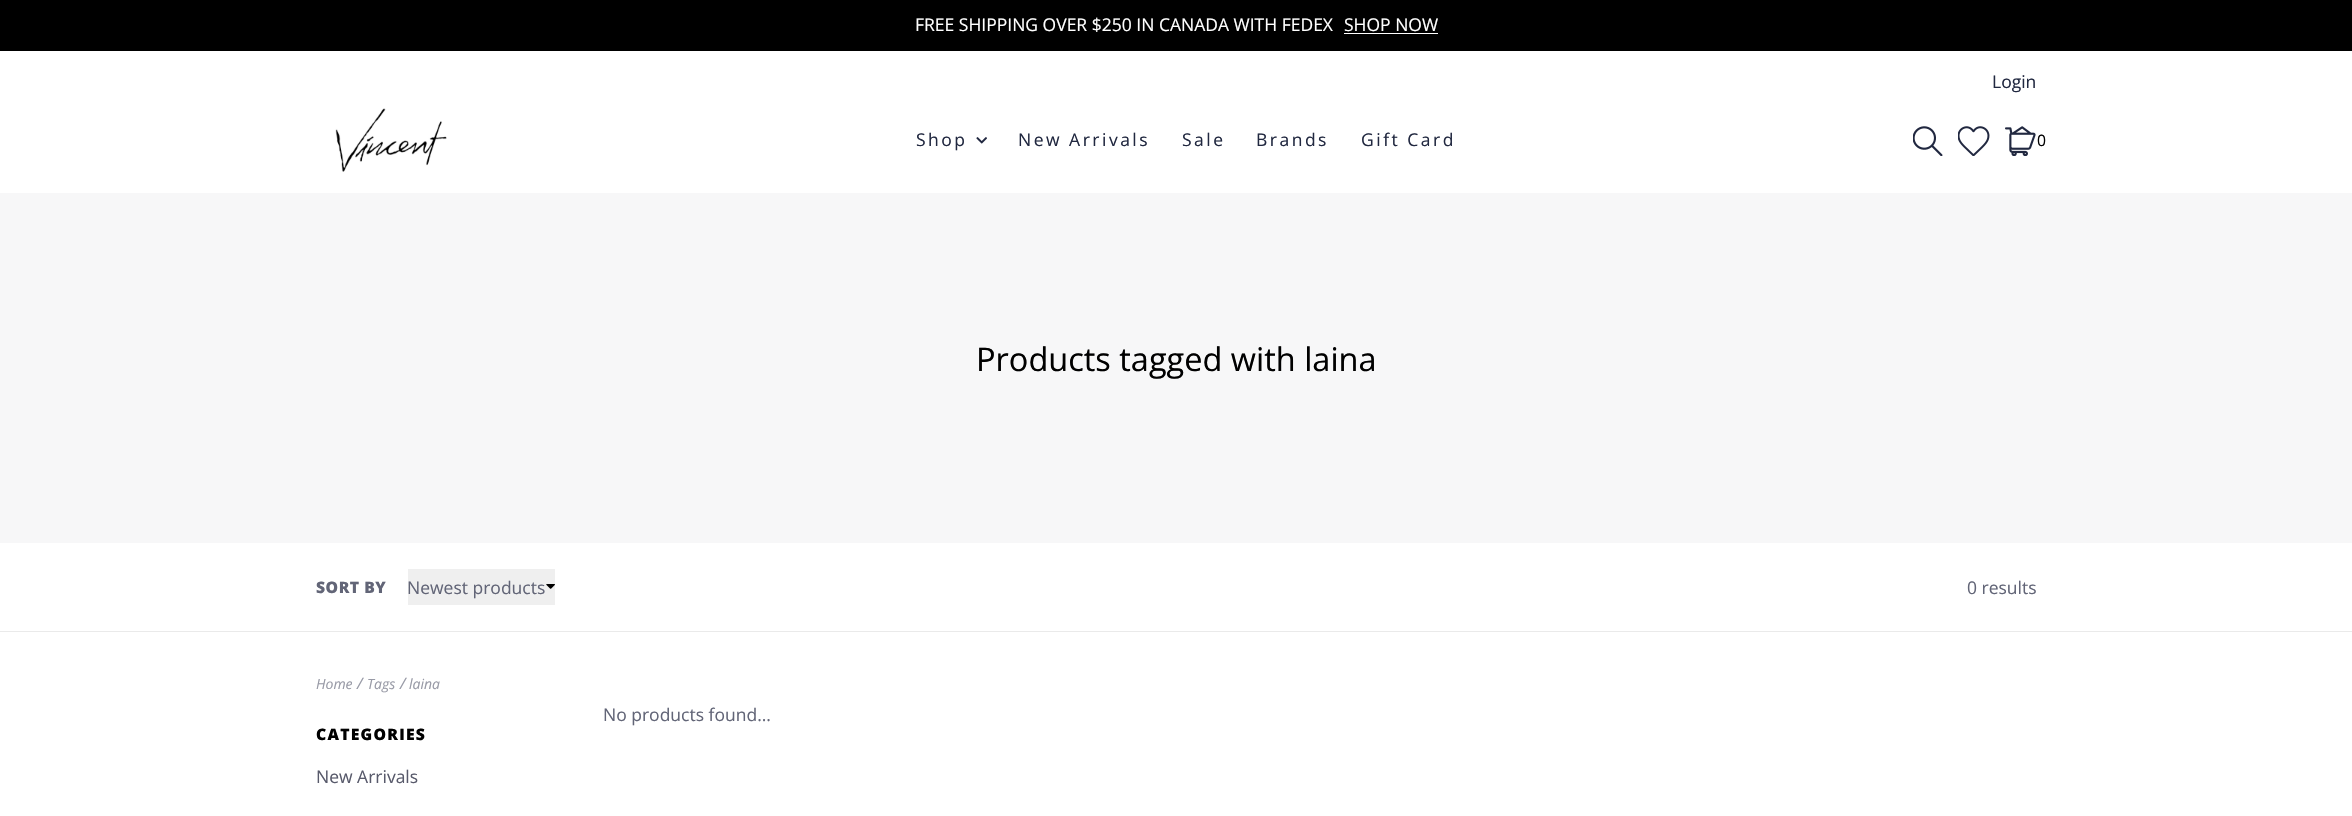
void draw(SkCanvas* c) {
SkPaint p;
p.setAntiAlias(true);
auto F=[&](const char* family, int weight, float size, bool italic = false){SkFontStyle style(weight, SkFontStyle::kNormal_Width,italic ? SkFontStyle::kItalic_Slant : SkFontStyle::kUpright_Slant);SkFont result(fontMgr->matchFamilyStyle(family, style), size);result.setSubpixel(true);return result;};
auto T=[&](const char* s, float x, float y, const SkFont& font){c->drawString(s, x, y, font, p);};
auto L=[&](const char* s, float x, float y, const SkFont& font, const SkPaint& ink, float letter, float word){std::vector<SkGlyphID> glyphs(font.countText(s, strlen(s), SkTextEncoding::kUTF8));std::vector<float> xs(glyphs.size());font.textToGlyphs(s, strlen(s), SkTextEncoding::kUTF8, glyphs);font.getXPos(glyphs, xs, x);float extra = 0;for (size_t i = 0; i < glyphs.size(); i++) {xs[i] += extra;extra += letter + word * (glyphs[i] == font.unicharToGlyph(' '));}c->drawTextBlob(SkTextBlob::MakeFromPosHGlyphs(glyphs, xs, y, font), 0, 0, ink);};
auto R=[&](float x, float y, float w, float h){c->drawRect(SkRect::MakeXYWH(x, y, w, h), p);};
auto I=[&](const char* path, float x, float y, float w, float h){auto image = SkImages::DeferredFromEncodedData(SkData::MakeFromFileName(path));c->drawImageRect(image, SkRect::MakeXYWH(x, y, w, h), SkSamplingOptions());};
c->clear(0xffffffff);
p.setColor(0xff000000);
R(0,0,2352,51);
auto f1 = F("Open Sans",400,17.5);
p.setColor(0xffffffff);
T("FREE SHIPPING OVER $250 IN CANADA WITH FEDEX",915,31,f1);
T("SHOP NOW",1344,31,f1);
R(1344,33,94,1);
p.setColor(0xff212840);
T("Login",1992,88,f1);
I("1.png",335,108,112,64);
L("Shop",916,146,f1,p,2.5,0);
I("2.png",976,137,11,7);
L("New Arrivals",1018,146,f1,p,2.5,0);
L("Sale",1182,146,f1,p,2.5,0);
L("Brands",1256,146,f1,p,2.5,0);
L("Gift Card",1361,146,f1,p,2.5,0);
I("3.png",1913,126,30,30);
I("4.png",1958,126,32,30);
I("5.png",2005,126,31,30);
auto f2 = F("Open Sans",400,15.75);
p.setColor(0xff000000);
T("0",2037,146,f2);
p.setColor(0xfff7f7f8);
R(0,193,2352,350);
auto f3 = F("Open Sans",400,32.5);
p.setColor(0xff000000);
T("Products tagged with laina",976,371,f3);
p.setColor(0xffeaeaea);
R(0,631,2352,1);
auto f4 = F("Open Sans",800,15.75);
p.setColor(0xff626577);
L("SORT BY",316,593,f4,p,.5,0);
p.setColor(0xffefefef);
R(408,569,147,36);
I("6.png",546,584,9,5);
p.setColor(0xff626577);
T("Newest products",407,594,f1);
T("0 results",1967,594,f1);
auto f5 = F("Open Sans",400,14,true);
p.setColor(0xff989aa6);
T("Home",316,689,f5);
auto f6 = F("Open Sans",400,15.75,true);
T("/",357,689,f6);
T("Tags",367,689,f5);
T("/",400,689,f6);
T("laina",409,689,f5);
p.setColor(0xff626577);
T("No products found...",603,721,f1);
p.setColor(0xff000000);
L("CATEGORIES",316,740,f4,p,1.25,0);
p.setColor(0xff585a6b);
T("New Arrivals",316,783,f1);
}
